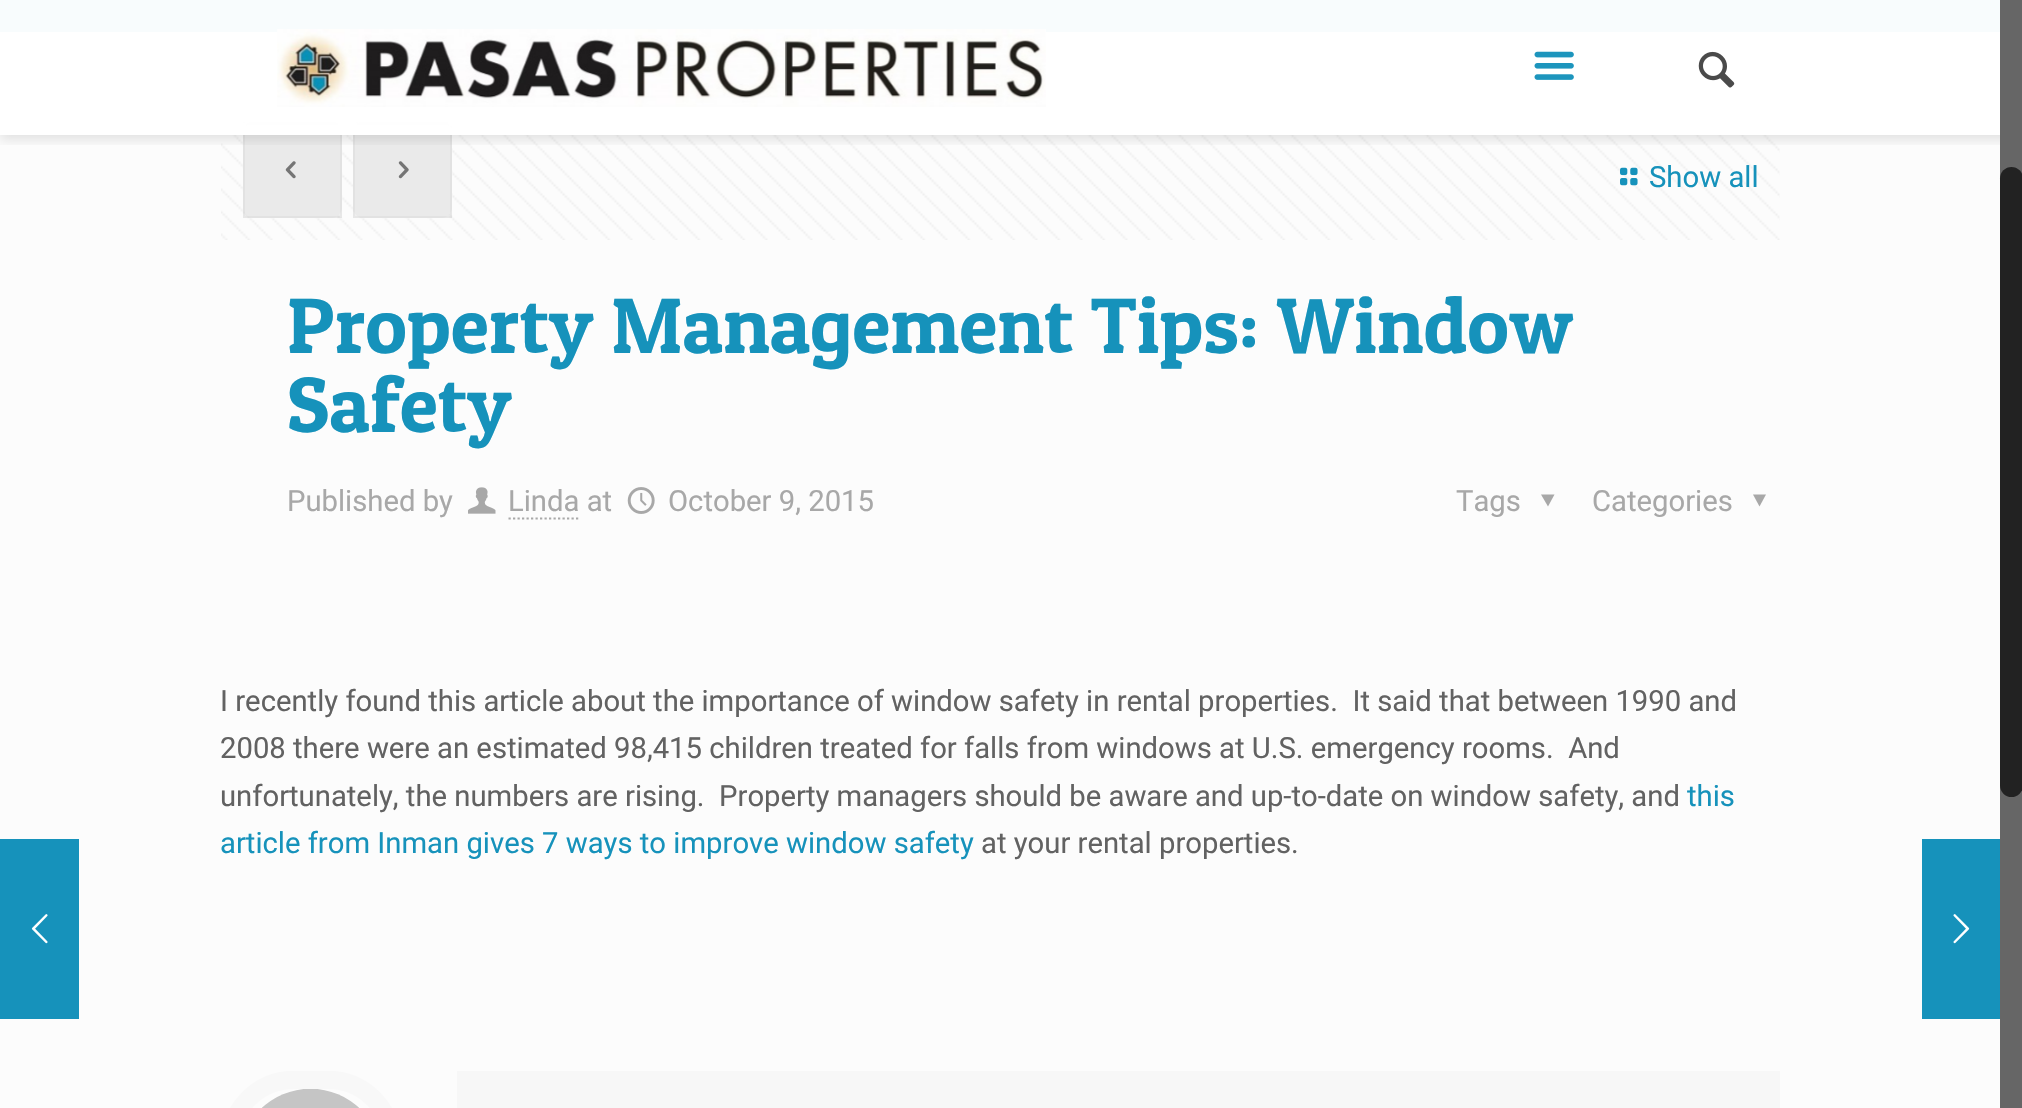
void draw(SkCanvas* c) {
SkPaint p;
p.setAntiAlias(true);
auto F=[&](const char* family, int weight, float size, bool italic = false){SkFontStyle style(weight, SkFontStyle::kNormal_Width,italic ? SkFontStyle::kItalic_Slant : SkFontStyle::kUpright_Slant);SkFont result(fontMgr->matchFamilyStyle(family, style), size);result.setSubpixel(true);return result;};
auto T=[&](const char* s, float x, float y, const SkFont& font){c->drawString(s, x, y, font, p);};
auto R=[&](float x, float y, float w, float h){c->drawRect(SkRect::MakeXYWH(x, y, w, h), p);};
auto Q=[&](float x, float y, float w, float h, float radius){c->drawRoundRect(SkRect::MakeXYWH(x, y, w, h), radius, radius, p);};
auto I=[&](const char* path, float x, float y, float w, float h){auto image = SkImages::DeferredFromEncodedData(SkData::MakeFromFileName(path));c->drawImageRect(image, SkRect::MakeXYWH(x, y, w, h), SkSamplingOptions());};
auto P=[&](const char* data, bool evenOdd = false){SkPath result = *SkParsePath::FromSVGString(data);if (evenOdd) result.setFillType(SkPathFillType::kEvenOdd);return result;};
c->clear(0xfffcfcfc);
p.setColor(0xff1692bb);
R(0,0,2000,32);
I("1.png",0,31,2000,5);
I("5.png",221,99,1559,141);
p.setColor(0xfff7f7f7);
Q(243,122,99,96,11);
I("6.png",245,121,95,6);
p.setStroke(true);
p.setStrokeWidth(2);
p.setColor(0x08000000);
c->drawRect(SkRect::MakeXYWH(244,123,97,94),p);
p.setStroke(false);
p.setColor(0x0d000000);
R(243,122,99,96);
p.setColor(0xfff7f7f7);
Q(353,122,99,96,11);
I("8.png",355,121,95,6);
p.setStroke(true);
p.setColor(0x08000000);
c->drawRect(SkRect::MakeXYWH(354,123,97,94),p);
p.setStroke(false);
p.setColor(0x0d000000);
R(353,122,99,96);
c->save();
c->clipRect(SkRect::MakeXYWH(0,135,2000,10));
p.setColor(0x1a000000);
p.setMaskFilter(SkMaskFilter::MakeBlur(kNormal_SkBlurStyle, 5.5));
c->drawRect(SkRect::MakeXYWH(0,5,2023,135),p);
p.setMaskFilter(nullptr);
c->restore();
p.setColor(0xf7ffffff);
R(0,0,2000,135);
I("2.png",277,29,769,78);
I("3.png",1534,51,40,29);
I("4.png",1698,51,37,37);
I("7.png",285,161,11,18);
I("9.png",398,161,11,18);
I("10.png",1620,167,18,19);
auto f1 = F("Roboto",400,29.25);
p.setColor(0xff1692bb);
T("Show all",1649,187,f1);
auto f2 = F("Patua One",400,78.75);
T("Property Management Tips: Window",287,353,f2);
T("Safety",287,432,f2);
p.setColor(0xffa8a8a8);
T("Published by",287,511,f1);
I("11.png",468,487,28,27);
T("Linda at",508,511,f1);
p.setStroke(true);
p.setStrokeWidth(2.2);
p.setPathEffect(SkDashPathEffect::Make({{2.25f,2.25f}}, 0));
c->drawPath(P("M508.5 518.5h72"),p);
p.setPathEffect(nullptr);
I("12.png",627,487,28,27);
p.setStroke(false);
T("October 9, 2015",668,511,f1);
T("Tags",1456,511,f1);
c->drawPath(P("M1554.5 494.5l-6.5 12l-7-12z"),p);
T("Categories",1592,511,f1);
c->drawPath(P("M1766 494.5l-6.5 12l-6.5-12z"),p);
p.setColor(0xff626262);
T("I recently found this article about the importance of window safety in rental properties.  It said that between 1990 and",220,711,f1);
T("2008 there were an estimated 98,415 children treated for falls from windows at U.S. emergency rooms.  And",220,758,f1);
T("unfortunately, the numbers are rising.  Property managers should be aware and up-to-date on window safety, and",220,806,f1);
p.setColor(0xff1692bb);
T("this",1687,806,f1);
T("article from Inman gives 7 ways to improve window safety",220,853,f1);
p.setColor(0xff626262);
T("at your rental properties.",981,853,f1);
p.setStroke(true);
p.setStrokeWidth(18);
p.setColor(0xfff8f8f8);
c->drawRoundRect(SkRect::MakeXYWH(230,1080,162,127),81,81,p);
I("13.png",262,1089,97,19);
p.setStroke(false);
p.setColor(0xfff7f7f7);
R(457,1071,1323,37);
p.setColor(0xff666666);
R(2000,0,22,1108);
p.setColor(0xff222222);
Q(2000,167,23,630,11.5);
p.setColor(0xff1692bb);
R(0,839,79,180);
I("14.png",31,914,17,30);
R(1922,839,78,180);
I("15.png",1953,914,17,30);
}
